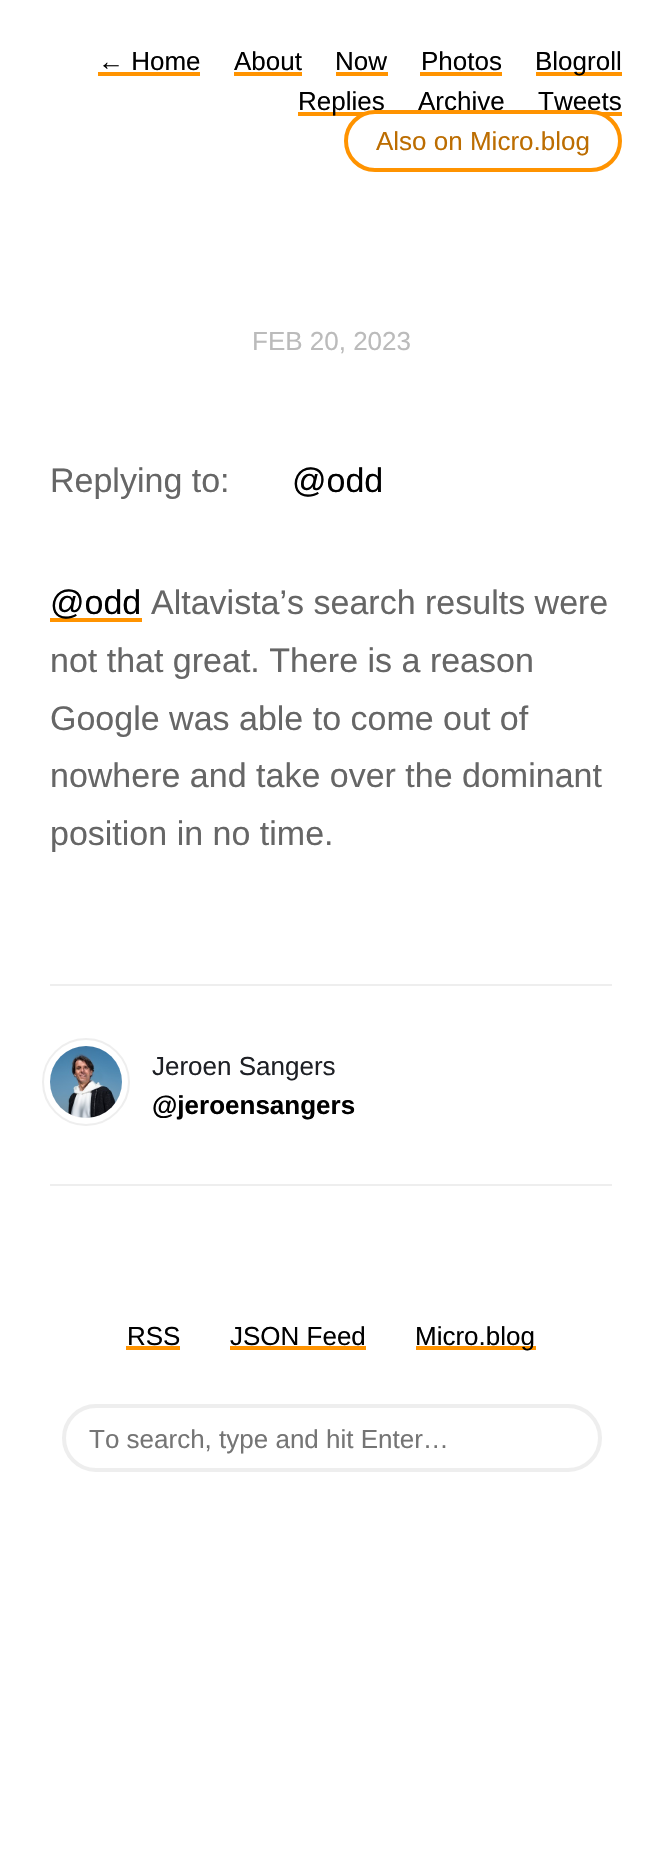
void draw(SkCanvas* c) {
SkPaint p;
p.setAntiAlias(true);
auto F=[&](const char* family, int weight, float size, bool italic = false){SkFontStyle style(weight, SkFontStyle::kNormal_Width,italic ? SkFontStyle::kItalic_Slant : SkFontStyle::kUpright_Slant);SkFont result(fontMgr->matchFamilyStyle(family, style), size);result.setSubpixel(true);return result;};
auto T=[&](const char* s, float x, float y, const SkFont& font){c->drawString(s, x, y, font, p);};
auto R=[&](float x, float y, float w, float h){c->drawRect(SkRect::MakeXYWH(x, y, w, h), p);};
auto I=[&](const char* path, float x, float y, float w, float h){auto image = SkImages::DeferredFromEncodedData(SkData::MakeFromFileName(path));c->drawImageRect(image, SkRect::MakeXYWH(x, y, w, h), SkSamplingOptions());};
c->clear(0xffffffff);
auto f1 = F("Liberation Sans",400,26);
p.setColor(0xff000000);
T("← Home",98,70,f1);
p.setColor(0xffff9300);
R(98,72,102,4);
p.setColor(0xff000000);
T("About",234,70,f1);
p.setColor(0xffff9300);
R(234,72,68,4);
p.setColor(0xff000000);
T("Now",335,70,f1);
p.setColor(0xffff9300);
R(336,72,52,4);
p.setColor(0xff000000);
T("Photos",421,70,f1);
p.setColor(0xffff9300);
R(420,72,82,4);
R(536,72,86,4);
p.setColor(0xff000000);
T("Blogroll",535,70,f1);
p.setColor(0xffff9300);
R(298,112,66,4);
p.setColor(0xff000000);
T("Replies",298,110,f1);
T("Archive",418,110,f1);
T("Tweets",538,110,f1);
p.setColor(0xffff9300);
R(602,112,20,4);
p.setColor(0xffffffff);
c->drawRoundRect(SkRect::MakeXYWH(346,112,274,58),29,29,p);
p.setStroke(true);
p.setStrokeWidth(4);
p.setColor(0xffff9300);
c->drawRoundRect(SkRect::MakeXYWH(346,112,274,58),29,29,p);
p.setStroke(false);
p.setColor(0xffbc6d01);
T("Also on Micro.blog",376,150,f1);
p.setColor(0xffbbbbbb);
T("FEB 20, 2023",252,350,f1);
auto f2 = F("Liberation Sans",400,34);
p.setColor(0xff666666);
T("Replying to:",50,492,f2);
p.setColor(0xff000000);
T("@odd",292,492,f2);
p.setColor(0xffff9300);
R(50,618,92,4);
p.setColor(0xff000000);
T("@odd",50,614,f2);
p.setColor(0xff666666);
T("Altavista’s search results were",151,614,f2);
T("not that great. There is a reason",50,672,f2);
T("Google was able to come out of",50,730,f2);
T("nowhere and take over the dominant",50,787,f2);
T("position in no time.",50,845,f2);
p.setColor(0xffeeeeee);
R(50,984,562,2);
R(50,1184,562,2);
p.setStroke(true);
p.setStrokeWidth(8);
c->drawCircle(86,1082,40,p);
p.setStrokeWidth(6);
p.setColor(0xffffffff);
c->drawCircle(86,1082,39,p);
I("1.png",50,1046,72,72);
p.setStroke(false);
p.setColor(0xff1e2025);
T("Jeroen Sangers",152,1075,f1);
auto f3 = F("Liberation Sans",700,26);
p.setColor(0xff000000);
T("@jeroensangers",152,1114,f3);
T("RSS",127,1345,f1);
p.setColor(0xffff9300);
R(126,1346,54,4);
p.setColor(0xff000000);
T("JSON Feed",230,1345,f1);
p.setColor(0xffff9300);
R(230,1346,136,4);
R(416,1346,120,4);
p.setColor(0xff000000);
T("Micro.blog",415,1345,f1);
p.setStroke(true);
p.setStrokeWidth(4);
p.setColor(0xffeeeeee);
c->drawRoundRect(SkRect::MakeXYWH(64,1406,536,64),32,32,p);
p.setStroke(false);
p.setColor(0xff757575);
T("To search, type and hit Enter…",89,1448,f1);
}
